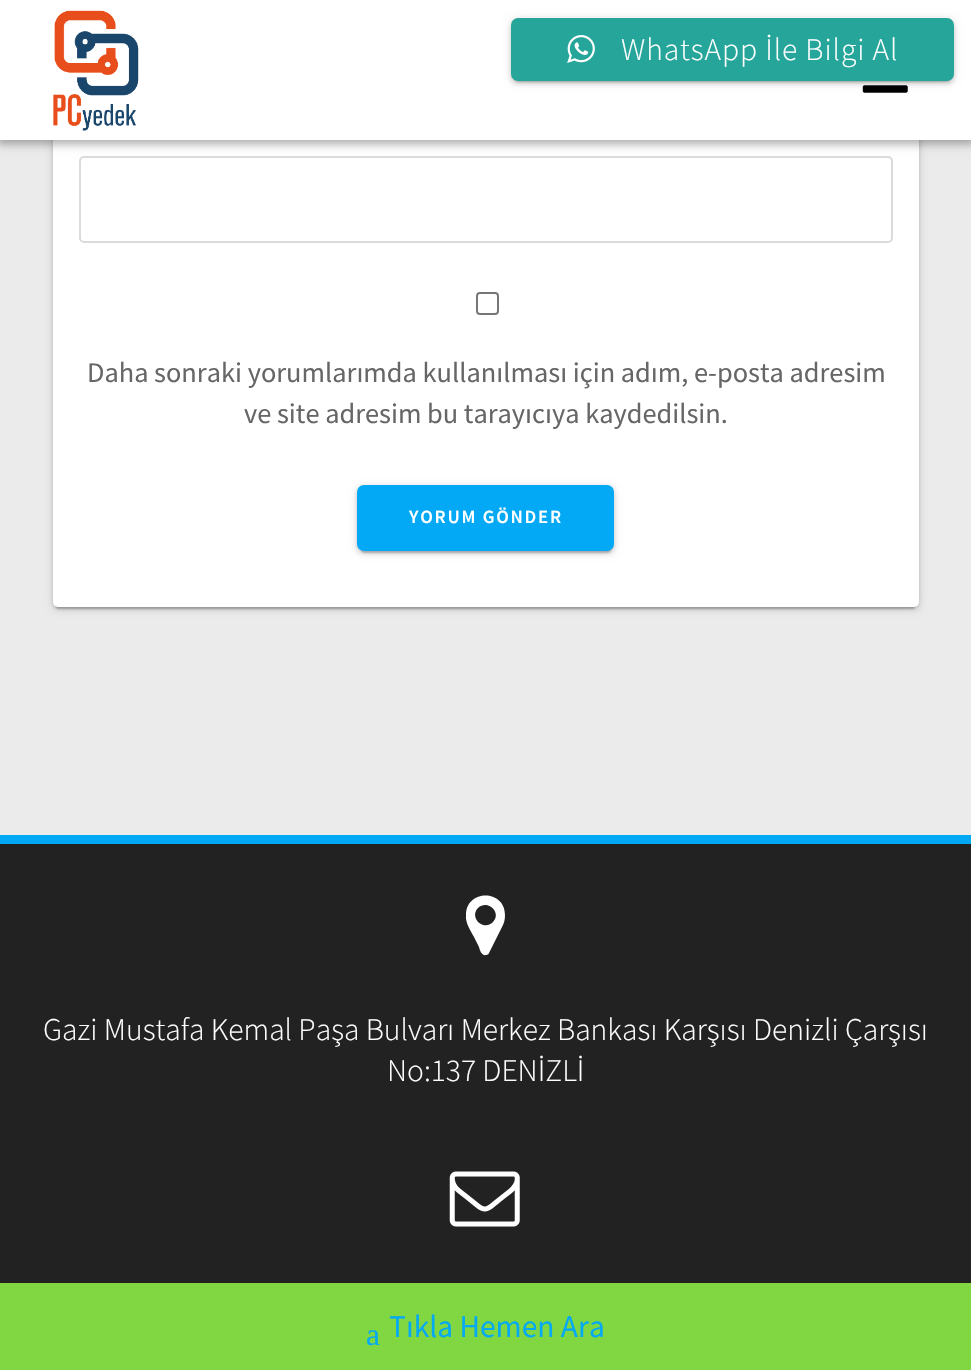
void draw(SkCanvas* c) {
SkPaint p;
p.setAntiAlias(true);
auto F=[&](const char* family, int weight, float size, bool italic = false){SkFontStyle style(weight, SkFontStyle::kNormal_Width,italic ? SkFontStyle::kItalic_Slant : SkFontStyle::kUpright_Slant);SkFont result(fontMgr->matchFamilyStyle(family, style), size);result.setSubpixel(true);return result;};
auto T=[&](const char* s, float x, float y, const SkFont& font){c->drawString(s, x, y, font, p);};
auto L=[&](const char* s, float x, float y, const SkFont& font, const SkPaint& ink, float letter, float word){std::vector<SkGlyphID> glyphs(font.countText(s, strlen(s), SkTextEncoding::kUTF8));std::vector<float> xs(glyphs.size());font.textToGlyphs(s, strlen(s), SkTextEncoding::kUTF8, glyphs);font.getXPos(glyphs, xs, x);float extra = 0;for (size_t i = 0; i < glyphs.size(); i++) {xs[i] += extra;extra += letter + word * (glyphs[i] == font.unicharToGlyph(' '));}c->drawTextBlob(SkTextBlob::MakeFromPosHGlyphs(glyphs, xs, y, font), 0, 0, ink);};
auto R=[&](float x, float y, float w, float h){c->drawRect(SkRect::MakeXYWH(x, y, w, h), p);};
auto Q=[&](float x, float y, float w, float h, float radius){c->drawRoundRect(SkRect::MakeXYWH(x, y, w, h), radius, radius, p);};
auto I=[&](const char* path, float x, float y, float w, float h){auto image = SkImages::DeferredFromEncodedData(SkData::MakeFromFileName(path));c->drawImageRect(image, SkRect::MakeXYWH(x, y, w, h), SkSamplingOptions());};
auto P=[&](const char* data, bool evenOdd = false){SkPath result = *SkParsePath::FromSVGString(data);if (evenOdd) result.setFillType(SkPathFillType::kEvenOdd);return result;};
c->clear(0xffebebeb);
p.setColor(0x1f000000);
p.setMaskFilter(SkMaskFilter::MakeBlur(kNormal_SkBlurStyle, 4.5));
c->drawRoundRect(SkRect::MakeXYWH(53,-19,866,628),5,5,p);
p.setMaskFilter(nullptr);
p.setColor(0x33000000);
p.setMaskFilter(SkMaskFilter::MakeBlur(kNormal_SkBlurStyle, 1));
c->drawRoundRect(SkRect::MakeXYWH(56,-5,859,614),2,2,p);
p.setMaskFilter(nullptr);
p.setColor(0x24000000);
p.setMaskFilter(SkMaskFilter::MakeBlur(kNormal_SkBlurStyle, 2));
c->drawRoundRect(SkRect::MakeXYWH(53,-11,866,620),5,5,p);
p.setMaskFilter(nullptr);
p.setColor(0xffffffff);
Q(53,-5,866,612,5);
p.setStroke(true);
p.setStrokeWidth(2);
p.setColor(0xffdbdbdb);
c->drawRoundRect(SkRect::MakeXYWH(80,157,812,85),4,4,p);
p.setStroke(false);
p.setColor(0x54000000);
p.setMaskFilter(SkMaskFilter::MakeBlur(kNormal_SkBlurStyle, 4.5));
c->drawRect(SkRect::MakeXYWH(-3,-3,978,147),p);
p.setMaskFilter(nullptr);
p.setColor(0xffffffff);
R(0,0,971,140);
I("1.png",53,10,86,121);
I("2.png",862,85,46,8);
p.setColor(0x33000000);
p.setMaskFilter(SkMaskFilter::MakeBlur(kNormal_SkBlurStyle, 1));
c->drawRoundRect(SkRect::MakeXYWH(515,26,435,56),4,4,p);
p.setMaskFilter(nullptr);
p.setColor(0x1f000000);
p.setMaskFilter(SkMaskFilter::MakeBlur(kNormal_SkBlurStyle, 4.5));
c->drawRoundRect(SkRect::MakeXYWH(511,19,443,63),7,7,p);
p.setMaskFilter(nullptr);
p.setColor(0x24000000);
p.setMaskFilter(SkMaskFilter::MakeBlur(kNormal_SkBlurStyle, 2));
c->drawRoundRect(SkRect::MakeXYWH(511,21,443,63),7,7,p);
p.setMaskFilter(nullptr);
p.setColor(0xff26a69a);
Q(511,18,443,63,7);
I("3.png",567,35,28,28);
auto f1 = F("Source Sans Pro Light",300,31.5);
p.setColor(0xffffffff);
L("WhatsApp İle Bilgi Al",621,60,f1,p,.9,0);
p.setStroke(true);
p.setColor(0xff767676);
c->drawRoundRect(SkRect::MakeXYWH(477,293,21,21),3,3,p);
auto f2 = F("Source Sans Pro",400,28.35);
p.setStroke(false);
p.setColor(0xff666666);
T("Daha sonraki yorumlarımda kullanılması için adım, e-posta adresim",87,382,f2);
T("ve site adresim bu tarayıcıya kaydedilsin.",244,423,f2);
p.setColor(0x1f000000);
p.setMaskFilter(SkMaskFilter::MakeBlur(kNormal_SkBlurStyle, 4.5));
c->drawRoundRect(SkRect::MakeXYWH(357,487,257,66),7,7,p);
p.setMaskFilter(nullptr);
p.setColor(0x33000000);
p.setMaskFilter(SkMaskFilter::MakeBlur(kNormal_SkBlurStyle, 1));
c->drawRoundRect(SkRect::MakeXYWH(361,494,250,59),4,4,p);
p.setMaskFilter(nullptr);
p.setColor(0x24000000);
p.setMaskFilter(SkMaskFilter::MakeBlur(kNormal_SkBlurStyle, 2));
c->drawRoundRect(SkRect::MakeXYWH(357,487,257,66),7,7,p);
p.setMaskFilter(nullptr);
p.setColor(0xff03a9f4);
Q(357,485,257,66,7);
auto f3 = F("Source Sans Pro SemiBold",600,18.75);
p.setColor(0xffffffff);
L("YORUM GÖNDER",409,523,f3,p,1.75,0);
p.setColor(0xff222222);
R(0,844,971,439);
p.setColor(0xff03a8f4);
R(0,835,971,9);
p.setColor(0xffffffff);
c->drawPath(P("M493 922c9-9-5-23-15-14c-9 9 5 24 15 14zm12-7c0 5-1 8-3 12l-13 26c0 1-2 2-3 2c-4 1-6-4-7-8l-5-10c-3-6-9-14-8-22c0-26 39-26 39 0z"),p);
T("Gazi Mustafa Kemal Paşa Bulvarı Merkez Bankası Karşısı Denizli Çarşısı",43,1040,f1);
T("No:137 DENİZLİ",387,1081,f1);
I("4.png",449,1171,71,56);
p.setColor(0xff81d742);
R(0,1283,971,87);
auto f4 = F("Liberation Serif",400,31.5);
p.setColor(0xff03a9f4);
T("a",366,1345,f4);
auto f5 = F("Source Sans Pro",400,31.5);
T("Tıkla Hemen Ara",389,1337,f5);
}
